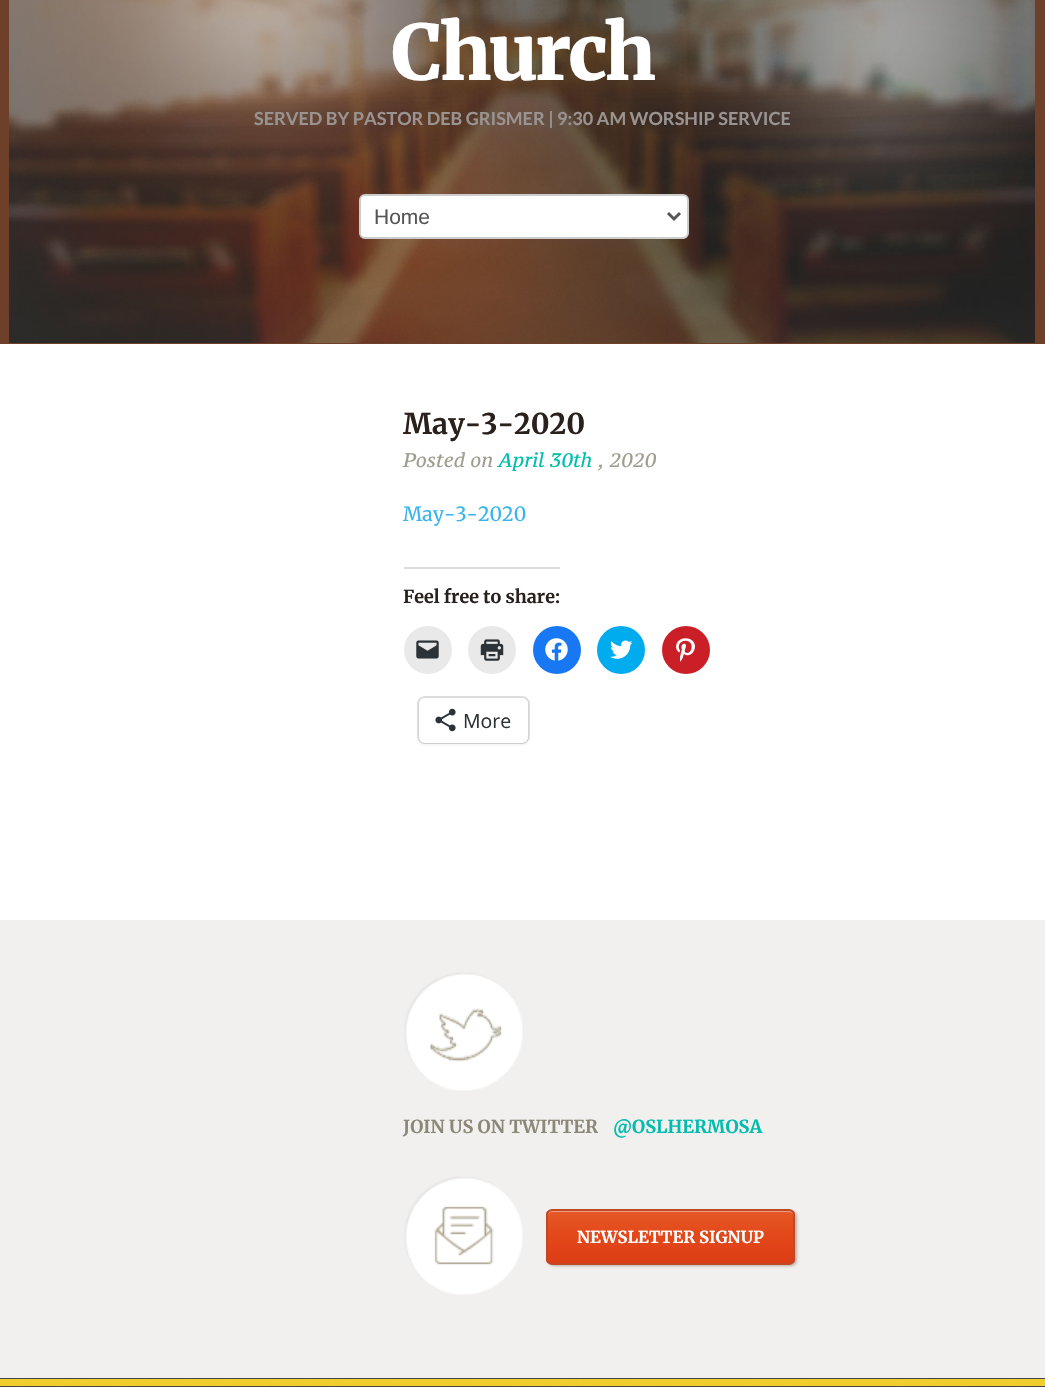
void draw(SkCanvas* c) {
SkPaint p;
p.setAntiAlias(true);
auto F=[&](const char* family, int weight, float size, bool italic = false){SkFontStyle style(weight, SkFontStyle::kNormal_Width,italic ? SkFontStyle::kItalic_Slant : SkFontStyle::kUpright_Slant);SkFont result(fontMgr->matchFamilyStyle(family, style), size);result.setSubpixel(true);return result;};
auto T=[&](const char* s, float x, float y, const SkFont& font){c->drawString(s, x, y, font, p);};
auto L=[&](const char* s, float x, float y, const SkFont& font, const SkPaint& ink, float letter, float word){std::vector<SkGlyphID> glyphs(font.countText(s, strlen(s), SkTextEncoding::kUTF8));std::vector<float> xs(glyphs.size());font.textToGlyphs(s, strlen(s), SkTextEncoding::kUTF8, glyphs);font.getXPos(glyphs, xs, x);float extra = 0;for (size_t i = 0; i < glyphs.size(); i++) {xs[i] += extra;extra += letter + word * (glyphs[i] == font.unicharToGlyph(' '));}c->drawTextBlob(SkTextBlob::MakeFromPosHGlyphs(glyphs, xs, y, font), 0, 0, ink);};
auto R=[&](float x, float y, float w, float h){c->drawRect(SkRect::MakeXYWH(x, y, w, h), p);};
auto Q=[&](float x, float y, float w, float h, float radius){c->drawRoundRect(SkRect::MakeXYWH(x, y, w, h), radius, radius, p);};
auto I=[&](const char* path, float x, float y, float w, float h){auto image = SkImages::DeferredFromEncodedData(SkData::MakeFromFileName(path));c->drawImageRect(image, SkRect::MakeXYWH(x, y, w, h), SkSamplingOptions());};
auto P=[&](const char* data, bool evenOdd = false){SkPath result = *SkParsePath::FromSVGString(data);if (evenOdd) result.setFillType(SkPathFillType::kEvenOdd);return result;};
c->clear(0xffffffff);
p.setColor(0xff6e4029);
R(0,0,1045,344);
I("1.png",9,0,1026,343);
auto f1 = F("Merriweather",900,76.5);
p.setColor(0xffffffff);
L("Church",392,80,f1,p,-3,0);
auto f2 = F("Lato",700,18);
p.setColor(0xff999391);
T("SERVED BY PASTOR DEB GRISMER | 9:30 AM WORSHIP SERVICE",254,125,f2);
p.setColor(0xffffffff);
c->drawRoundRect(SkRect::MakeXYWH(360,195,328,43),5,5,p);
p.setStroke(true);
p.setStrokeWidth(2);
p.setColor(0xffcccccc);
c->drawRoundRect(SkRect::MakeXYWH(360,195,328,43),5,5,p);
p.setStrokeWidth(3);
p.setColor(0xff555555);
c->drawPath(P("M668 213l6 6l6-6"),p);
auto f3 = F("Liberation Sans",400,21);
p.setStroke(false);
T("Home",374,224,f3);
auto f4 = F("Merriweather",700,28.5);
p.setColor(0xff2a201c);
T("May-3-2020",403,434,f4);
auto f5 = F("PT Serif Caption",400,19.5,true);
p.setColor(0xffa09c8e);
T("Posted on",403,467,f5);
p.setColor(0xff00bdad);
T("April 30th",498,467,f5);
p.setColor(0xffa09c8e);
T(", 2020",598,467,f5);
auto f6 = F("Merriweather",400,19.5);
p.setColor(0xff39b4ed);
T("May-3-2020",403,521,f6);
p.setColor(0xffdcdcde);
R(404,567,156,2);
auto f7 = F("Merriweather",700,18);
p.setColor(0xff2a201c);
T("Feel free to share:",403,603,f7);
p.setColor(0xffe9e9e9);
c->drawCircle(428,650,24,p);
I("2.png",416,640,23,19);
c->drawCircle(492,650,24,p);
I("3.png",480,639,24,22);
p.setColor(0xff1877f2);
c->drawCircle(557,650,24,p);
I("4.png",545,638,23,23);
p.setColor(0xff00acee);
c->drawCircle(621,650,24,p);
I("5.png",610,640,23,19);
p.setColor(0xffca1f27);
c->drawCircle(686,650,24,p);
I("6.png",676,638,19,24);
p.setStroke(true);
p.setStrokeWidth(2);
p.setColor(0xffe0e0e0);
c->drawRoundRect(SkRect::MakeXYWH(418,697,111,46),7,7,p);
p.setStroke(false);
p.setColor(0x1f000000);
p.setMaskFilter(SkMaskFilter::MakeBlur(kNormal_SkBlurStyle, 1.5));
c->drawRoundRect(SkRect::MakeXYWH(419,699,109,45),6,6,p);
p.setMaskFilter(nullptr);
p.setColor(0xffffffff);
Q(419,698,109,45,6);
I("7.png",435,708,21,24);
auto f8 = F("Open Sans",400,19.5);
p.setColor(0xff2c3338);
T("More",463,728,f8);
p.setColor(0xfff1f0ee);
R(0,920,1045,458);
I("8.png",404,972,119,119);
p.setColor(0xff8c8878);
T("JOIN US ON TWITTER",403,1133,f7);
p.setColor(0xff00bdad);
T("@OSLHERMOSA",613,1133,f7);
I("9.png",404,1176,119,119);
p.setColor(0x969a7d6c);
p.setMaskFilter(SkMaskFilter::MakeBlur(kNormal_SkBlurStyle, 1.5));
c->drawRoundRect(SkRect::MakeXYWH(548,1211,249,55),6,6,p);
p.setMaskFilter(nullptr);
c->save();
c->clipPath(P("M552 1209h237c3.5 0 6 2.5 6 6v44c0 3.5-2.5 6-6 6h-237c-3.5 0-6-2.5-6-6v-44c0-3.5 2.5-6 6-6z"),true);
{
const SkColor colors[] = {0xffe65927,0xffe34a1b,0xffdd3d15};
const float stops[] = {0,.4,1};
const SkPoint ends[] = {{671,1211}, {671,1263}};
p.setShader(SkGradientShader::MakeLinear(ends, colors, stops, 3, SkTileMode::kClamp));
p.setAlpha(255);
}
R(546,1211,249,52);
c->restore();
p.setShader(nullptr);
p.setColor(0xfff09b7d);
c->drawPath(P("M552 1212h237c2 0 5 2 5 4c0-3-2-5-5-5h-236c-3 0-5 2-5 5c0-2 2-4 4-4z"),p);
p.setStroke(true);
p.setColor(0xffbf4927);
c->drawRoundRect(SkRect::MakeXYWH(547,1210,247,54),5,5,p);
auto f9 = F("Merriweather",700,16.5);
p.setStroke(false);
p.setColor(0xffffffff);
T("NEWSLETTER SIGNUP",577,1243,f9);
I("10.png",0,1378,1045,9);
p.setColor(0xfff0ce2e);
R(0,1379,1045,7);
}
